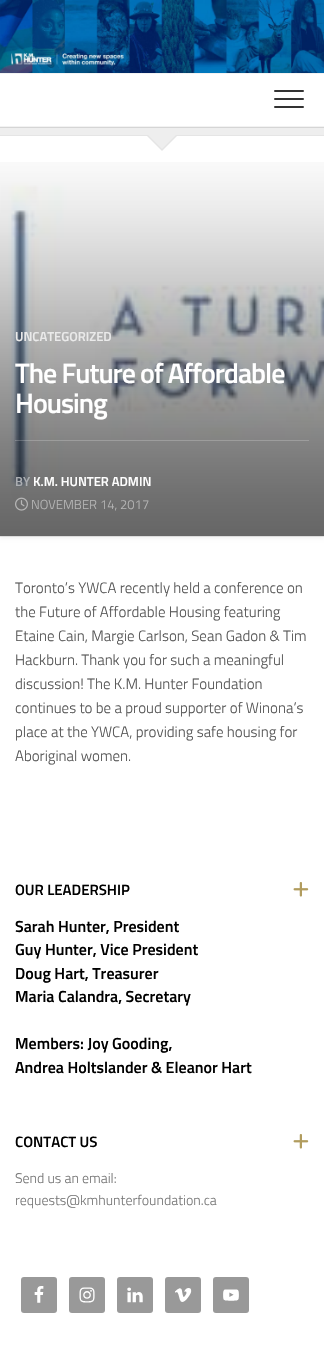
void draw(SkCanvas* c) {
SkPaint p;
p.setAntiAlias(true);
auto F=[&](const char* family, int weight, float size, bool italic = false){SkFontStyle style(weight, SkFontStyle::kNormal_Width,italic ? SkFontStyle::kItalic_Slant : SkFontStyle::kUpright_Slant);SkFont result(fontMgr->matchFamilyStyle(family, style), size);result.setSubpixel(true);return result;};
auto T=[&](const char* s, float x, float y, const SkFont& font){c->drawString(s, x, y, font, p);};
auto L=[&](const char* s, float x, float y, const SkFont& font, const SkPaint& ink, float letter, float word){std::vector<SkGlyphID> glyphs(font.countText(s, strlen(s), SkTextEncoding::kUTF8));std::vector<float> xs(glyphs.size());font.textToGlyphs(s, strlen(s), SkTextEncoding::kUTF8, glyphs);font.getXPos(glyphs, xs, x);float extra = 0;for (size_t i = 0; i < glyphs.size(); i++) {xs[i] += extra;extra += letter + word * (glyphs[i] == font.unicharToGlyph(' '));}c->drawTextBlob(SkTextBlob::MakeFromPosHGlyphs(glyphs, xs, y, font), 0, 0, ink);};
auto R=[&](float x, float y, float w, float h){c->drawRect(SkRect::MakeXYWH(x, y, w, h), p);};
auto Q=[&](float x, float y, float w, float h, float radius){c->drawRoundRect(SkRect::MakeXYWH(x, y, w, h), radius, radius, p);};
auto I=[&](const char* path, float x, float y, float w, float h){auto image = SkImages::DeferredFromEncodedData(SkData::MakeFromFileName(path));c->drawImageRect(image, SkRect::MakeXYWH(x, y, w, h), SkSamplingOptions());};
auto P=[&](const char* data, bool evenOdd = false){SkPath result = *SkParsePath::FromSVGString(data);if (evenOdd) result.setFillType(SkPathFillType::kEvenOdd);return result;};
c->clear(0xffffffff);
I("1.png",0,0,324,73);
p.setColor(0x0a000000);
p.setMaskFilter(SkMaskFilter::MakeBlur(kNormal_SkBlurStyle, 1.5));
c->drawRect(SkRect::MakeXYWH(0,139,324,400),p);
p.setMaskFilter(nullptr);
p.setColor(0xffeeeeee);
R(0,127,324,8);
p.setColor(0x1a000000);
R(0,127,324,1);
p.setColor(0xfff2f2f2);
R(0,73,324,1);
R(0,126,324,1);
p.setColor(0xff333333);
Q(274,90,30,2,1);
Q(274,98,30,2,1);
Q(274,106,30,2,1);
p.setColor(0xffe5e5e5);
R(0,135,324,1);
I("2.png",0,136,324,400);
c->drawPath(P("M147 136h30l-15 15z"),p);
p.setColor(0xffeeeeee);
c->drawPath(P("M147 134h30l-15 15z"),p);
p.setColor(0x1a000000);
R(0,536,324,1);
I("3.png",0,162,324,374);
auto f1 = F("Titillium",600,13);
p.setColor(0xffeaeaea);
T("UNCATEGORIZED",15,341,f1);
auto f2 = F("Titillium",600,28);
p.setColor(0xffffffff);
L("The Future of Affordable",15,383,f2,p,-1,0);
L("Housing",15,413,f2,p,-1,0);
p.setColor(0x33ffffff);
R(15,440,294,1);
p.setColor(0xffabaeb2);
T("BY",15,486,f1);
p.setColor(0xffffffff);
T("K.M. HUNTER ADMIN",33,486,f1);
I("4.png",15,497,13,14);
auto f3 = F("Titillium",300,13);
p.setColor(0xffb6b6b6);
T("NOVEMBER 14, 2017",31,509,f3);
auto f4 = F("Titillium",300,15);
p.setColor(0xff555555);
T("Toronto’s YWCA recently held a conference on",15,593,f4);
T("the Future of Affordable Housing featuring",15,617,f4);
T("Etaine Cain, Margie Carlson, Sean Gadon & Tim",15,641,f4);
T("Hackburn. Thank you for such a meaningful",15,665,f4);
T("discussion! The K.M. Hunter Foundation",15,689,f4);
T("continues to be a proud supporter of Winona’s",15,713,f4);
T("place at the YWCA, providing safe housing for",15,737,f4);
T("Aboriginal women.",15,761,f4);
auto f5 = F("Titillium",600,15);
p.setColor(0xff000000);
T("OUR LEADERSHIP",15,895,f5);
I("5.png",293,882,16,15);
auto f6 = F("Titillium",600,16);
T("Sarah Hunter, President",15,932,f6);
T("Guy Hunter, Vice President",15,955,f6);
T("Doug Hart, Treasurer",15,979,f6);
T("Maria Calandra, Secretary",15,1002,f6);
T("Members: Joy Gooding,",15,1049,f6);
T("Andrea Holtslander & Eleanor Hart",15,1073,f6);
T("CONTACT US",15,1147,f5);
I("5.png",293,1134,16,15);
auto f7 = F("Titillium",300,14);
p.setColor(0xff777777);
T("Send us an email:",15,1183,f7);
T("requests@kmhunterfoundation.ca",15,1205,f7);
p.setColor(0xff999999);
Q(21,1277,36,36,3);
I("6.png",34,1286,10,17);
Q(69,1277,36,36,3);
I("7.png",79,1287,16,16);
Q(117,1277,36,36,3);
I("8.png",127,1287,16,16);
Q(165,1277,36,36,3);
I("9.png",175,1288,17,14);
Q(213,1277,36,36,3);
I("10.png",223,1289,16,12);
}
